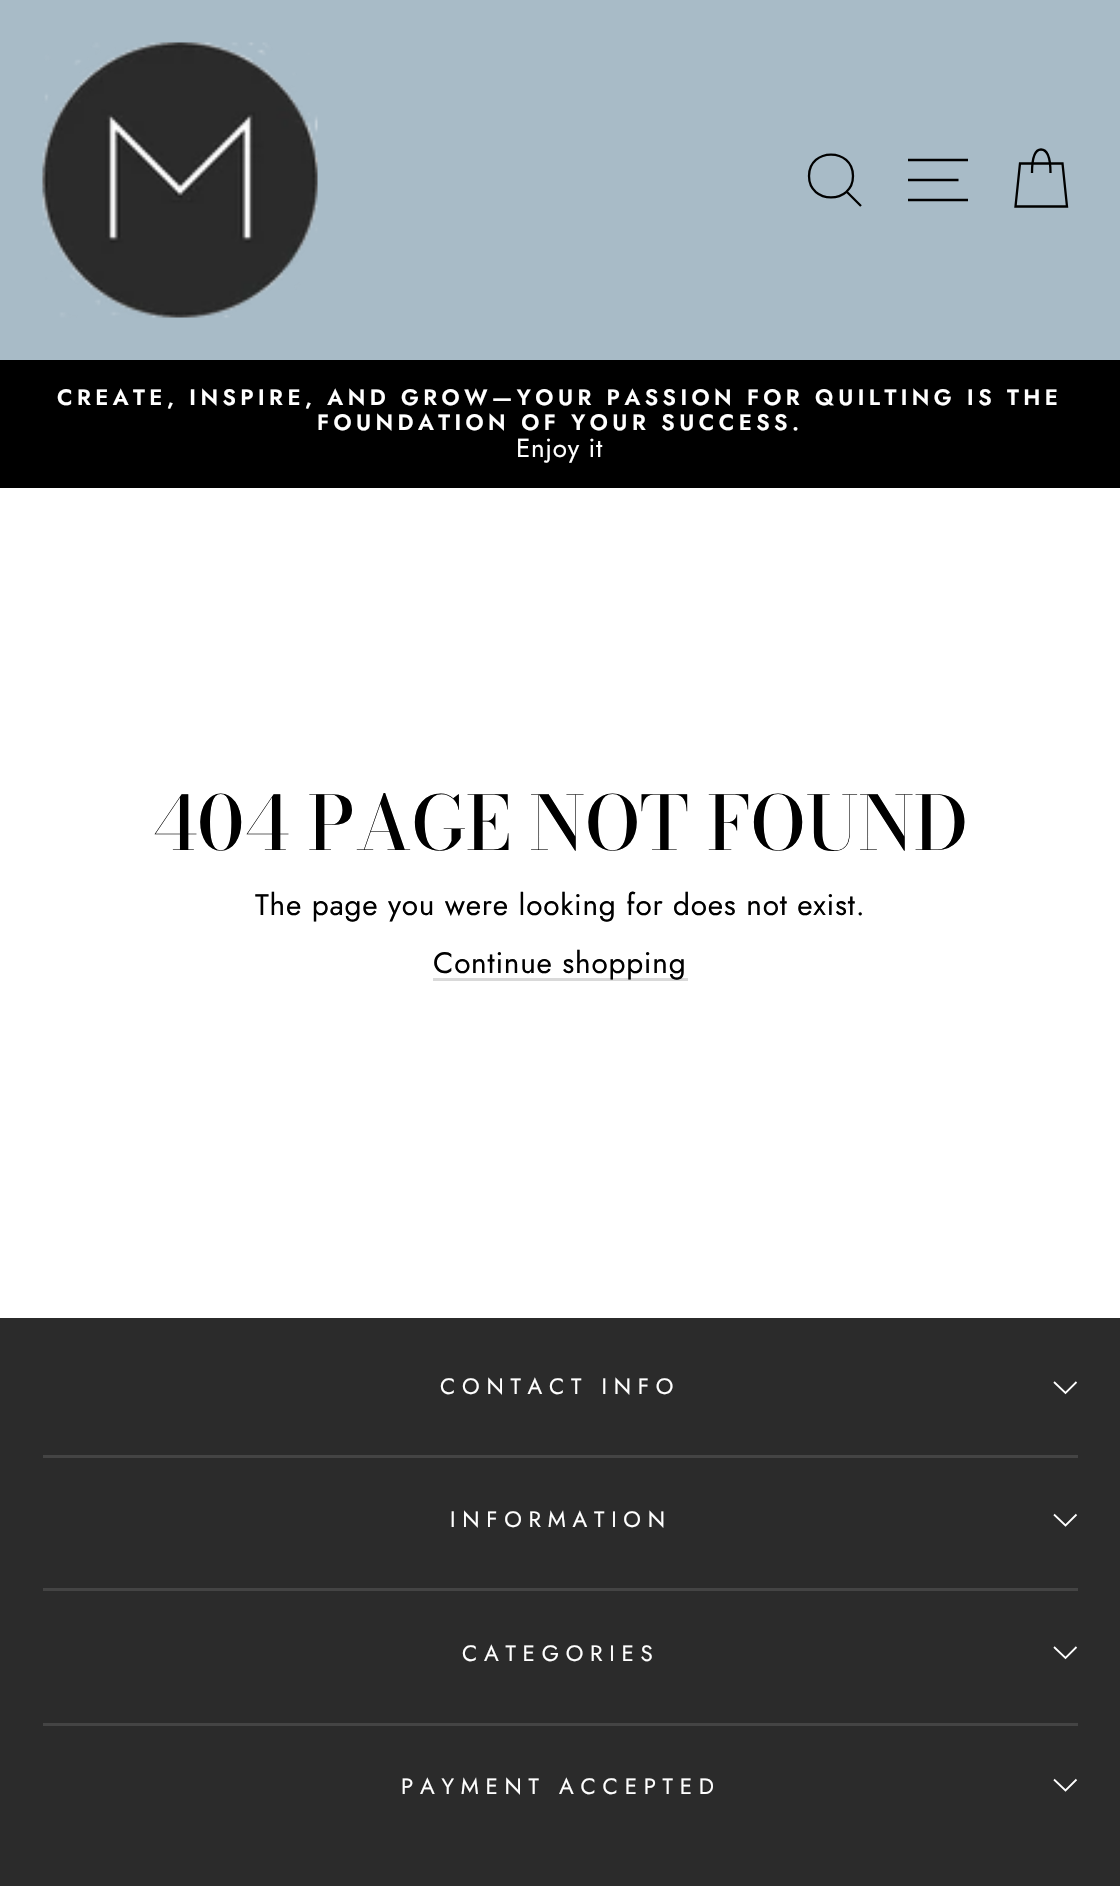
void draw(SkCanvas* c) {
SkPaint p;
p.setAntiAlias(true);
auto F=[&](const char* family, int weight, float size, bool italic = false){SkFontStyle style(weight, SkFontStyle::kNormal_Width,italic ? SkFontStyle::kItalic_Slant : SkFontStyle::kUpright_Slant);SkFont result(fontMgr->matchFamilyStyle(family, style), size);result.setSubpixel(true);return result;};
auto T=[&](const char* s, float x, float y, const SkFont& font){c->drawString(s, x, y, font, p);};
auto L=[&](const char* s, float x, float y, const SkFont& font, const SkPaint& ink, float letter, float word){std::vector<SkGlyphID> glyphs(font.countText(s, strlen(s), SkTextEncoding::kUTF8));std::vector<float> xs(glyphs.size());font.textToGlyphs(s, strlen(s), SkTextEncoding::kUTF8, glyphs);font.getXPos(glyphs, xs, x);float extra = 0;for (size_t i = 0; i < glyphs.size(); i++) {xs[i] += extra;extra += letter + word * (glyphs[i] == font.unicharToGlyph(' '));}c->drawTextBlob(SkTextBlob::MakeFromPosHGlyphs(glyphs, xs, y, font), 0, 0, ink);};
auto R=[&](float x, float y, float w, float h){c->drawRect(SkRect::MakeXYWH(x, y, w, h), p);};
auto I=[&](const char* path, float x, float y, float w, float h){auto image = SkImages::DeferredFromEncodedData(SkData::MakeFromFileName(path));c->drawImageRect(image, SkRect::MakeXYWH(x, y, w, h), SkSamplingOptions());};
auto P=[&](const char* data, bool evenOdd = false){SkPath result = *SkParsePath::FromSVGString(data);if (evenOdd) result.setFillType(SkPathFillType::kEvenOdd);return result;};
c->clear(0xffffffff);
p.setColor(0xffa8bbc7);
R(0,0,1120,360);
I("1.png",42,42,276,276);
p.setStroke(true);
p.setStrokeWidth(2.3);
p.setColor(0xff000000);
c->drawPath(P("M853 176c0 28.5-44 28.5-44 0c0-28.5 44-28.5 44 0zm8 30l-14.5-14.5"),p);
c->drawPath(P("M908 160h60m-60 20h50.5m-50.5 20h60"),p);
c->drawPath(P("M1032 173c0-18.5 4-23.5 9-23.5c5.5 0 9.5 5 9.5 23.5m-30.5-9.5h42.5l4.5 43h-51.5z"),p);
p.setStroke(false);
R(0,360,1120,128);
auto f1 = F("Jost",600,22.3);
p.setColor(0xffffffff);
L("CREATE, INSPIRE, AND GROW—YOUR PASSION FOR QUILTING IS THE",57,405,f1,p,4.45,-.25);
L("FOUNDATION OF YOUR SUCCESS.",317,430,f1,p,4.45,0);
auto f2 = F("Jost",400,26);
L("Enjoy it",516,457,f2,p,.75,0);
auto f3 = F("Bodoni Moda",500,74.4);
p.setColor(0xff000000);
T("404 PAGE NOT FOUND",152,850,f3);
auto f4 = F("Jost",400,29.75);
L("The page you were looking for does not exist.",255,915,f4,p,.75,0);
p.setColor(0xffd9d9d9);
R(433,978,255,3);
p.setColor(0xff000000);
L("Continue shopping",433,973,f4,p,.75,0);
p.setColor(0xff2b2b2b);
R(0,1318,1120,568);
auto f5 = F("Jost",400,22.3);
p.setColor(0xffffffff);
L("CONTACT INFO",440,1394,f5,p,6.75,0);
p.setStroke(true);
p.setStrokeWidth(1.8);
c->drawPath(P("M1054 1382l11.5 11l11-11"),p);
p.setStroke(false);
p.setColor(0xff444444);
R(43,1455,1035,3);
p.setColor(0xffffffff);
L("INFORMATION",450,1527,f5,p,6.75,0);
p.setStroke(true);
c->drawPath(P("M1054 1514.5l11.5 11l11-11"),p);
p.setStroke(false);
p.setColor(0xff444444);
R(43,1588,1035,3);
p.setColor(0xffffffff);
L("CATEGORIES",462,1661,f5,p,6.75,0);
p.setStroke(true);
c->drawPath(P("M1054 1647l11.5 11l11-11"),p);
p.setStroke(false);
p.setColor(0xff444444);
R(43,1723,1035,3);
p.setColor(0xffffffff);
L("PAYMENT ACCEPTED",401,1794,f5,p,6.75,0);
p.setStroke(true);
c->drawPath(P("M1054 1779.5l11.5 11l11-11"),p);
}
